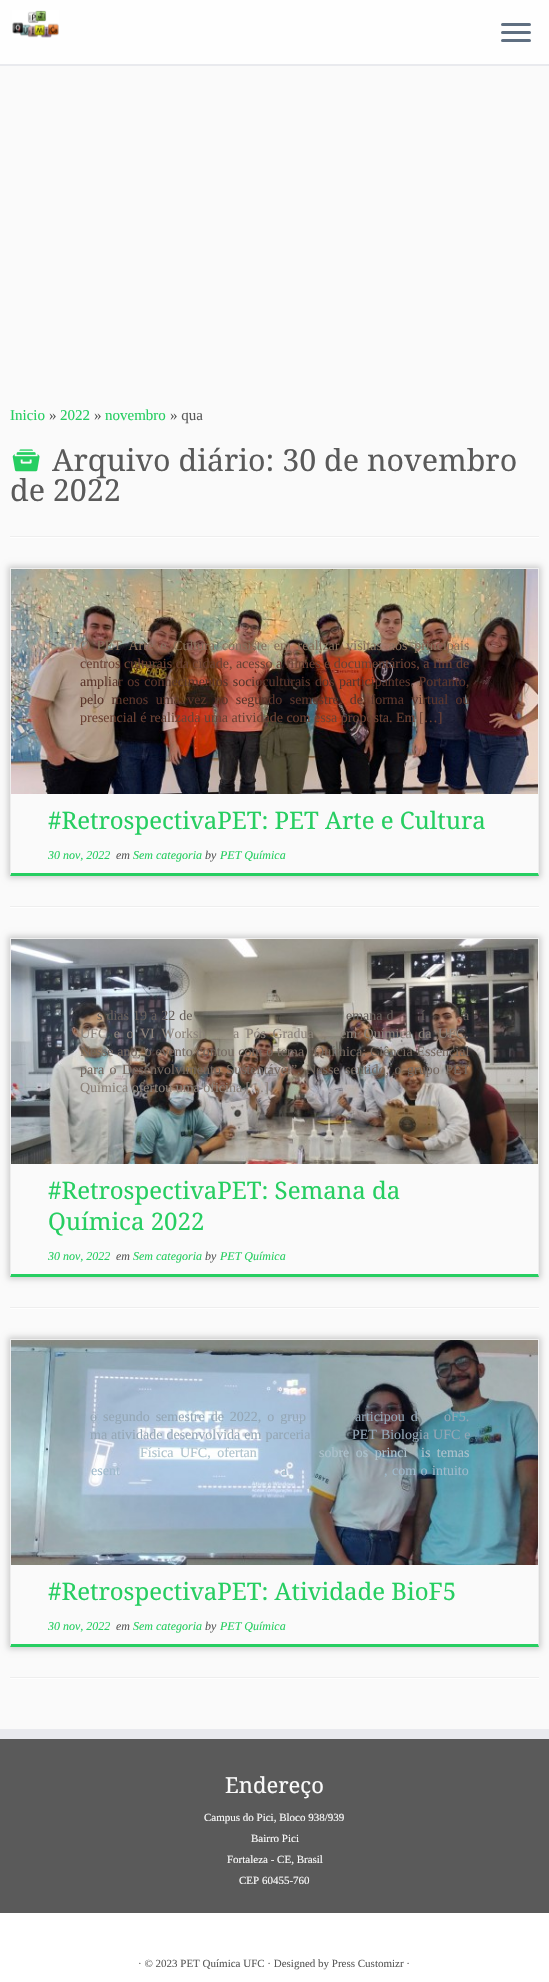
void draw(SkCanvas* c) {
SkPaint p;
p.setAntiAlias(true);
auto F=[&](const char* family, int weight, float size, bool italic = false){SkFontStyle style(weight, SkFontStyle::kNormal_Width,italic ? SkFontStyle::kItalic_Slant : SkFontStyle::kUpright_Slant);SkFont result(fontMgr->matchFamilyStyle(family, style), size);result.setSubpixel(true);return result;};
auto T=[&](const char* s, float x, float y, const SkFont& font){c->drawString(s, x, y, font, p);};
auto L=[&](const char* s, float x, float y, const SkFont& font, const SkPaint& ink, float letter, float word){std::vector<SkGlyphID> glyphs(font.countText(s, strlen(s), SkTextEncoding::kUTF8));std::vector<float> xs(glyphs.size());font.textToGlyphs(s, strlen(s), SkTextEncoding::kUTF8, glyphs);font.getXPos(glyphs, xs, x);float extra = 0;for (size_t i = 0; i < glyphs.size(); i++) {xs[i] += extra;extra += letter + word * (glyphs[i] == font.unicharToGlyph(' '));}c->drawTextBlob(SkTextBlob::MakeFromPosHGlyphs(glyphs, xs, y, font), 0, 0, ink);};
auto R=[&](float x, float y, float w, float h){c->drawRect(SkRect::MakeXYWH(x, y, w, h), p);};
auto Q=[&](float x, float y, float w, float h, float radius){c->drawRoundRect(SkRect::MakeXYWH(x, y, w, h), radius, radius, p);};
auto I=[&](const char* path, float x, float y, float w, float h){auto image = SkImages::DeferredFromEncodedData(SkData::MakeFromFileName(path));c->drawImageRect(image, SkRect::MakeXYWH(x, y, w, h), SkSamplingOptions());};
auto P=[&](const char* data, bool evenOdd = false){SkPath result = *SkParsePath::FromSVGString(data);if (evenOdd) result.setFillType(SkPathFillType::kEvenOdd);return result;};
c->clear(0xfffafafa);
p.setColor(0xfffefefe);
R(0,0,549,64);
p.setColor(0xffe9eaee);
R(0,64,549,2);
I("1.png",12,10,47,28);
p.setColor(0xff5f6f81);
Q(501,23,30,3,1.5);
Q(501,31,30,3,1.5);
Q(501,39,30,3,1.5);
auto f1 = F("Liberation Serif",400,15);
p.setColor(0xff26ce61);
T("Inicio",10,420,f1);
p.setColor(0xff5a5a5a);
T("»",49,420,f1);
p.setColor(0xff26ce61);
T("2022",60,420,f1);
p.setColor(0xff5a5a5a);
T("»",94,420,f1);
p.setColor(0xff26ce61);
T("novembro",105,420,f1);
p.setColor(0xff5a5a5a);
T("» qua",170,420,f1);
I("2.png",12,449,28,23);
auto f2 = F("Noto Serif",400,30.4);
T("Arquivo diário: 30 de novembro",52,471,f2);
T("de 2022",10,501,f2);
p.setColor(0xffeeeeee);
R(10,536,529,1);
p.setColor(0xffffffff);
R(10,537,529,1);
c->save();
c->clipPath(P("M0 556h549v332h-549zm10 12h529v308h-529z",true),true);
p.setColor(0xffcccccc);
p.setMaskFilter(SkMaskFilter::MakeBlur(kNormal_SkBlurStyle, 3));
c->drawRect(SkRect::MakeXYWH(8,566,533,312),p);
p.setMaskFilter(nullptr);
c->restore();
p.setColor(0xffeeeeee);
R(10,568,529,1);
c->drawPath(P("M539 568v308l-1-3v-304z"),p);
p.setColor(0xff26ce61);
c->drawPath(P("M539 876h-529l1-3h527z"),p);
p.setColor(0xffeeeeee);
c->drawPath(P("M10 876v-308l1 1v304z"),p);
I("3.png",11,569,527,225);
auto f3 = F("Liberation Serif",400,14);
p.setColor(0xff866e5a);
L("O PET Arte e Cultura consiste em realizar visitas aos principais",80,650,f3,p,0,3.25);
p.setColor(0xff6b4133);
T("centros culturais da cidade, acesso a filmes e documentários, a fim de",80,668,f3);
p.setColor(0xff5a352b);
L("ampliar os conhecimentos socioculturais dos participantes. Portanto,",80,686,f3,p,0,1);
L("pelo menos uma vez no segundo semestre, de forma virtual ou",80,704,f3,p,0,4);
p.setColor(0xff6b4133);
T("presencial é realizada uma atividade com essa proposta. Em […]",80,722,f3);
auto f4 = F("Noto Serif",400,24);
p.setColor(0xff26ce61);
T("#RetrospectivaPET: PET Arte e Cultura",48,829,f4);
auto f5 = F("Liberation Serif",400,12,true);
T("30 nov, 2022",48,859,f5);
p.setColor(0xff5a5a5a);
T("em",116,859,f5);
p.setColor(0xff26ce61);
T("Sem categoria",133,859,f5);
p.setColor(0xff5a5a5a);
T("by",205,859,f5);
p.setColor(0xff26ce61);
T("PET Química",220,859,f5);
p.setColor(0xffeeeeee);
R(10,906,529,1);
p.setColor(0xffffffff);
R(10,907,529,1);
c->save();
c->clipPath(P("M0 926h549v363h-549zm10 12h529v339h-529z",true),true);
p.setColor(0xffcccccc);
p.setMaskFilter(SkMaskFilter::MakeBlur(kNormal_SkBlurStyle, 3));
c->drawRect(SkRect::MakeXYWH(8,936,533,343),p);
p.setMaskFilter(nullptr);
c->restore();
p.setColor(0xffeeeeee);
R(10,938,529,1);
c->drawPath(P("M539 938v339l-1-3v-335z"),p);
p.setColor(0xff26ce61);
c->drawPath(P("M539 1277h-529l1-3h527z"),p);
p.setColor(0xffeeeeee);
c->drawPath(P("M10 1277v-339l1 1v335z"),p);
I("4.png",11,939,527,225);
p.setColor(0xff665f5b);
L("s dias 19 a 22 de",97,1020,f3,p,0,.5);
L("emana d",346,1020,f3,p,0,.5);
L("í",421,1020,f3,p,0,.5);
L("a",463,1020,f3,p,0,.5);
p.setColor(0xff8b827a);
L("UFC e o VI Worksh",80,1038,f3,p,0,3);
L("a Pós Gradua",233,1038,f3,p,0,3);
L("em Química da UFC.",340,1038,f3,p,0,3);
p.setColor(0xff746860);
L("Nesse ano, o evento contou com o tema “Química: Ciência Essencial",80,1056,f3,p,0,.25);
L("para o Desenvolvimento Sustentável”. Nesse sentido, o grupo PET",80,1074,f3,p,0,2);
p.setColor(0xff8b827a);
T("Química ofertou uma oficina […]",80,1092,f3);
p.setColor(0xff26ce61);
T("#RetrospectivaPET: Semana da",48,1199,f4);
T("Química 2022",48,1230,f4);
T("30 nov, 2022",48,1260,f5);
p.setColor(0xff5a5a5a);
T("em",116,1260,f5);
p.setColor(0xff26ce61);
T("Sem categoria",133,1260,f5);
p.setColor(0xff5a5a5a);
T("by",205,1260,f5);
p.setColor(0xff26ce61);
T("PET Química",220,1260,f5);
p.setColor(0xffeeeeee);
R(10,1307,529,1);
p.setColor(0xffffffff);
R(10,1308,529,1);
c->save();
c->clipPath(P("M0 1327h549v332h-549zm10 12h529v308h-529z",true),true);
p.setColor(0xffcccccc);
p.setMaskFilter(SkMaskFilter::MakeBlur(kNormal_SkBlurStyle, 3));
c->drawRect(SkRect::MakeXYWH(8,1337,533,312),p);
p.setMaskFilter(nullptr);
c->restore();
p.setColor(0xffeeeeee);
R(10,1339,529,1);
c->drawPath(P("M539 1339v308l-1-3v-304z"),p);
p.setColor(0xff26ce61);
c->drawPath(P("M539 1647h-529l1-3h527z"),p);
p.setColor(0xffeeeeee);
c->drawPath(P("M10 1647v-308l1 1v304z"),p);
I("5.png",11,1340,527,225);
p.setColor(0xff94a7b6);
L("o segundo semestre de 2022, o grup",90,1421,f3,p,0,2.5);
L("articipou d",355,1421,f3,p,0,2.5);
L("oF5.",444,1421,f3,p,0,2.5);
L("ma atividade desenvolvida em parceria",90,1439,f3,p,0,.5);
L("PET Biologia UFC e",352,1439,f3,p,0,.5);
p.setColor(0xffadc2cd);
L("Física UFC, ofertan",140,1457,f3,p,0,3);
L("sobre os princi",319,1457,f3,p,0,3);
L("is temas",421,1457,f3,p,0,3);
p.setColor(0xff9fbacc);
L("esent",91,1475,f3,p,0,1);
L("a",281,1475,f3,p,0,1);
L(", com o intuito",384,1475,f3,p,0,1);
p.setColor(0xff26ce61);
T("#RetrospectivaPET: Atividade BioF5",48,1600,f4);
T("30 nov, 2022",48,1630,f5);
p.setColor(0xff5a5a5a);
T("em",116,1630,f5);
p.setColor(0xff26ce61);
T("Sem categoria",133,1630,f5);
p.setColor(0xff5a5a5a);
T("by",205,1630,f5);
p.setColor(0xff26ce61);
T("PET Química",220,1630,f5);
p.setColor(0xffeeeeee);
R(10,1677,529,1);
p.setColor(0xffffffff);
R(10,1678,529,1);
p.setColor(0xff5a5a5a);
R(0,1739,549,174);
p.setColor(0xffe9eaee);
R(0,1729,549,10);
auto f6 = F("Noto Serif",400,22);
p.setColor(0xfffafafa);
T("Endereço",225,1793,f6);
auto f7 = F("Liberation Serif",400,11);
T("Campus do Pici, Bloco 938/939",204,1821,f7);
T("Bairro Pici",251,1842,f7);
T("Fortaleza - CE, Brasil",227,1863,f7);
T("CEP 60455-760",239,1884,f7);
p.setColor(0xffffffff);
R(0,1913,549,69);
p.setColor(0xff5a5a5a);
T("· © 2023 PET Química UFC · Designed by Press Customizr ·",138,1967,f7);
}
